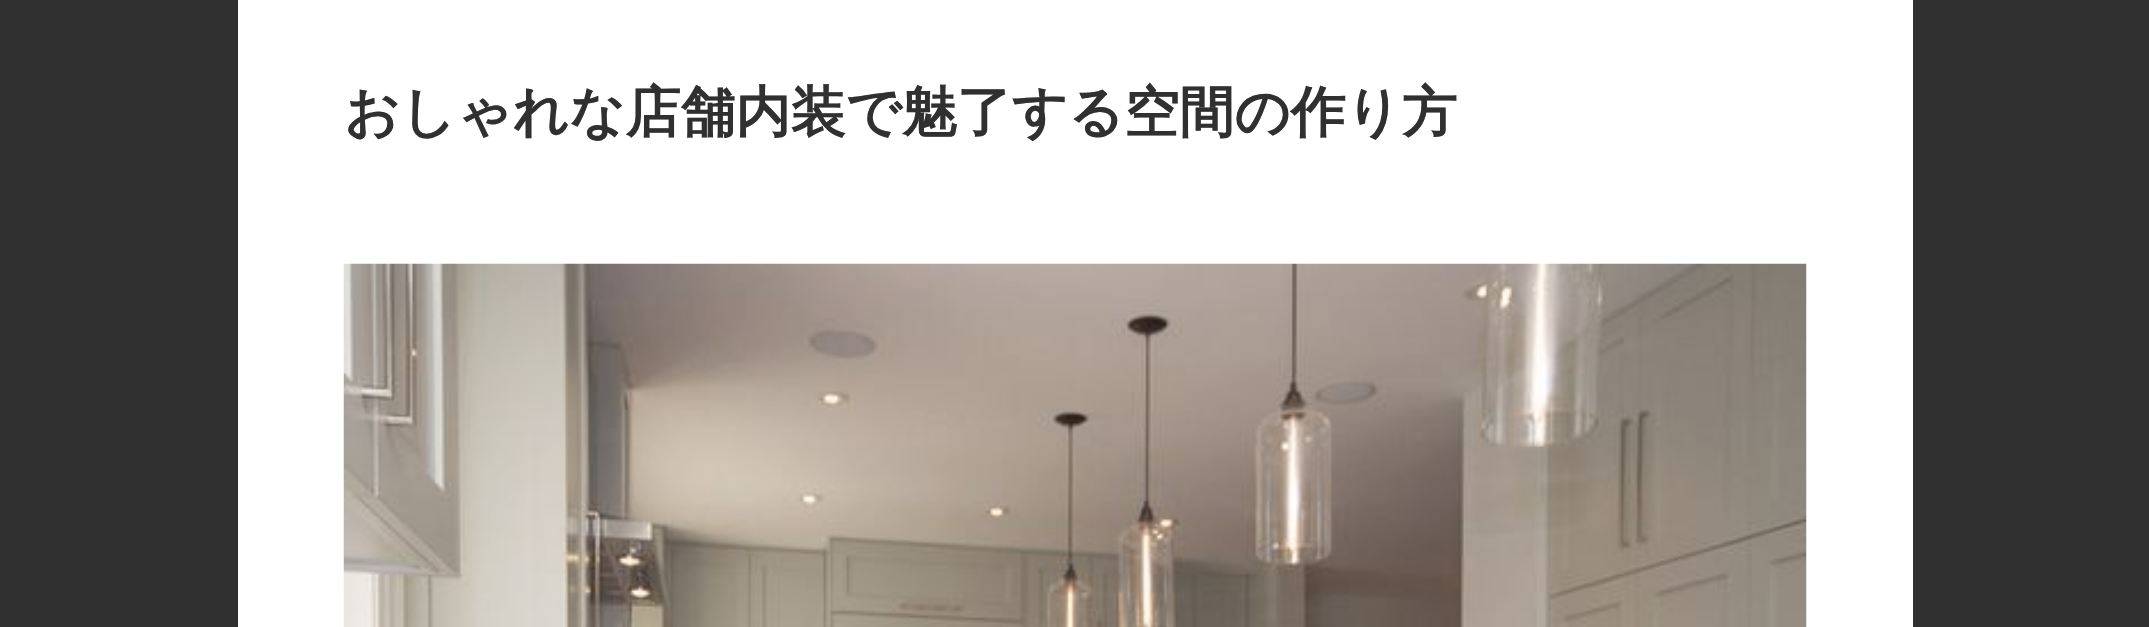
void draw(SkCanvas* c) {
SkPaint p;
p.setAntiAlias(true);
auto F=[&](const char* family, int weight, float size, bool italic = false){SkFontStyle style(weight, SkFontStyle::kNormal_Width,italic ? SkFontStyle::kItalic_Slant : SkFontStyle::kUpright_Slant);SkFont result(fontMgr->matchFamilyStyle(family, style), size);result.setSubpixel(true);return result;};
auto T=[&](const char* s, float x, float y, const SkFont& font){c->drawString(s, x, y, font, p);};
auto R=[&](float x, float y, float w, float h){c->drawRect(SkRect::MakeXYWH(x, y, w, h), p);};
auto I=[&](const char* path, float x, float y, float w, float h){auto image = SkImages::DeferredFromEncodedData(SkData::MakeFromFileName(path));c->drawImageRect(image, SkRect::MakeXYWH(x, y, w, h), SkSamplingOptions());};
c->clear(0xff303030);
p.setColor(0xffffffff);
R(238,0,1675,627);
auto f1 = F("WenQuanYi Zen Hei",700,55);
p.setColor(0xff303030);
T("おしゃれな店舗内装で魅了する空間の作り方",344,131,f1);
I("1.png",343,263,1464,364);
}
